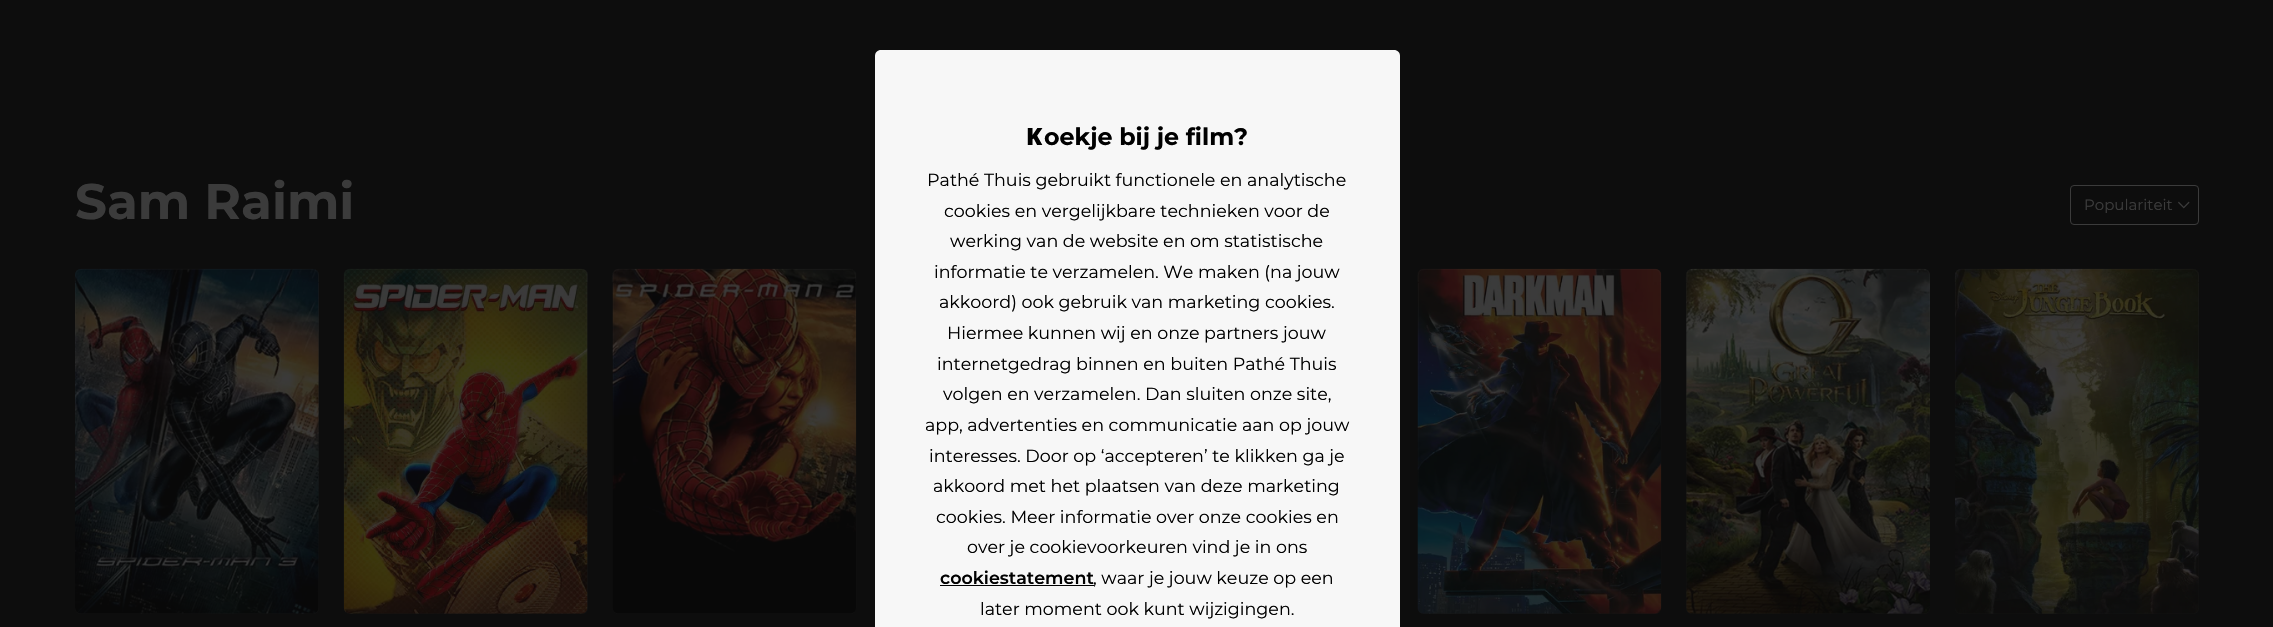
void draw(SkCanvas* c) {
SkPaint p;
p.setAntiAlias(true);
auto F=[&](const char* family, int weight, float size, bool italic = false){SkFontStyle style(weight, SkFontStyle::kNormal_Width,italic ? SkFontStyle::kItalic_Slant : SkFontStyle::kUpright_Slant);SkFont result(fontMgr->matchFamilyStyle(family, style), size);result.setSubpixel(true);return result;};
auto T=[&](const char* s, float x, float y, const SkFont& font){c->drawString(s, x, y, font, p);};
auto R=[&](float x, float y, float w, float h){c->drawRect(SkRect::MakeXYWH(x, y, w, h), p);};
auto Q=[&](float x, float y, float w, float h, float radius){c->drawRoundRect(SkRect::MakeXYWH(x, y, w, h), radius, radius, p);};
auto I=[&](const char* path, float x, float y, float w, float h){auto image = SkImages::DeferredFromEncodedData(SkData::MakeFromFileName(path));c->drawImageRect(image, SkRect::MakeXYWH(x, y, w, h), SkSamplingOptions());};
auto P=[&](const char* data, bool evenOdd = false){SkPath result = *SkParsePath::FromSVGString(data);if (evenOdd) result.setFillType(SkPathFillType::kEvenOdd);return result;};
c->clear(0xff0d0d0d);
p.setColor(0xfff7f7f7);
c->drawPath(P("M881 50h513c3.5 0 6 2.5 6 6v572h-525v-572c0-3.5 2.5-6 6-6z"),p);
auto f1 = F("Noto Sans",900,23.75);
p.setColor(0xff000000);
T("K",1026,145,f1);
auto f2 = F("Montserrat",700,23.75);
T("oekje bij je film?",1044,145,f2);
auto f3 = F("Montserrat",400,17.5);
T("Pathé Thuis gebruikt functionele en analytische",927,186,f3);
T("cookies en vergelijkbare technieken voor de",944,217,f3);
T("werking van de website en om statistische",950,247,f3);
T("informatie te verzamelen. We maken (na jouw",934,278,f3);
T("akkoord) ook gebruik van marketing cookies.",939,308,f3);
T("Hiermee kunnen wij en onze partners jouw",947,339,f3);
T("internetgedrag binnen en buiten Pathé Thuis",937,370,f3);
T("volgen en verzamelen. Dan sluiten onze site,",943,400,f3);
T("app, advertenties en communicatie aan op jouw",925,431,f3);
T("interesses. Door op ‘accepteren’ te klikken ga je",929,462,f3);
T("akkoord met het plaatsen van deze marketing",933,492,f3);
T("cookies. Meer informatie over onze cookies en",936,523,f3);
T("over je cookievoorkeuren vind je in ons",967,553,f3);
auto f4 = F("Montserrat",600,17.5);
T("cookiestatement",940,584,f4);
R(940,585,154,1);
T(", waar je jouw keuze op een",1093,584,f3);
T("later moment ook kunt wijzigingen.",980,615,f3);
auto f5 = F("Montserrat",700,50);
p.setColor(0xff3b3b3b);
T("Sam Raimi",75,219,f5);
p.setStroke(true);
p.setStrokeWidth(1);
c->drawRoundRect(SkRect::MakeXYWH(2070.5,185.5,128,39),3.5,3.5,p);
auto f6 = F("Montserrat",400,15);
p.setStroke(false);
T("Populariteit",2084,210,f6);
I("1.png",2178,201,12,8);
p.setColor(0xff111111);
Q(75,269,244,345,6);
I("2.png",75,268,244,346);
p.setColor(0x1a3b3b3b);
c->drawPath(P("M81 269h231c4 0 7 3 7 6v7h-244c0-4-1-13 6-13zm0 1h231c3 0 6 2 6 5v7h-242c0-4-1-12 5-12z",true),p);
{
const SkColor colors[] = {0x1a3b3b3b,0x003b3b3b};
const float stops[] = {0,1};
const SkPoint ends[] = {{318,283}, {318,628}};
p.setShader(SkGradientShader::MakeLinear(ends, colors, stops, 2, SkTileMode::kClamp));
p.setAlpha(255);
}
R(318,283,1,140);
{
const SkColor colors[] = {0x1a3b3b3b,0x003b3b3b};
const float stops[] = {0,1};
const SkPoint ends[] = {{76,283}, {76,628}};
p.setShader(SkGradientShader::MakeLinear(ends, colors, stops, 2, SkTileMode::kClamp));
p.setAlpha(255);
}
R(75,283,1,140);
p.setShader(nullptr);
p.setColor(0xff111111);
Q(344,269,244,345,6);
I("3.png",343,268,245,346);
p.setColor(0x1a3b3b3b);
c->drawPath(P("M350 269h231c4 0 7 3 7 6v7h-244c0-4-1-13 6-13zm0 1h231c3 0 5 2 5 5v7h-241c0-4-1-12 5-12z",true),p);
{
const SkColor colors[] = {0x1a3b3b3b,0x003b3b3b};
const float stops[] = {0,1};
const SkPoint ends[] = {{587,283}, {587,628}};
p.setShader(SkGradientShader::MakeLinear(ends, colors, stops, 2, SkTileMode::kClamp));
p.setAlpha(255);
}
R(586,283,1,199);
{
const SkColor colors[] = {0x1a3b3b3b,0x003b3b3b};
const float stops[] = {0,1};
const SkPoint ends[] = {{344,283}, {344,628}};
p.setShader(SkGradientShader::MakeLinear(ends, colors, stops, 2, SkTileMode::kClamp));
p.setAlpha(255);
}
R(344,283,1,132);
p.setShader(nullptr);
p.setColor(0xff111111);
Q(613,269,243,345,6);
I("4.png",612,268,245,346);
p.setColor(0x1a3b3b3b);
c->drawPath(P("M619 269h231c3 0 6 3 6 6v7h-244c0-4-1-13 7-13zm0 1h231c3 0 5 2 5 5v7h-241c0-4-2-12 5-12z",true),p);
{
const SkColor colors[] = {0x1a3b3b3b,0x003b3b3b};
const float stops[] = {0,1};
const SkPoint ends[] = {{856,283}, {856,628}};
p.setShader(SkGradientShader::MakeLinear(ends, colors, stops, 2, SkTileMode::kClamp));
p.setAlpha(255);
}
R(855,283,1,140);
{
const SkColor colors[] = {0x1a3b3b3b,0x003b3b3b};
const float stops[] = {0,1};
const SkPoint ends[] = {{613,283}, {613,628}};
p.setShader(SkGradientShader::MakeLinear(ends, colors, stops, 2, SkTileMode::kClamp));
p.setAlpha(255);
}
R(613,283,1,199);
p.setShader(nullptr);
p.setColor(0xff111111);
Q(1418,269,243,345,6);
I("5.png",1417,268,245,346);
p.setColor(0x1a3b3b3b);
c->drawPath(P("M1424 269h231c3 0 6 3 6 6v7h-243c0-4-2-13 6-13zm0 1h231c3 0 5 2 5 5v7h-241c0-4-2-12 5-12z",true),p);
{
const SkColor colors[] = {0x1a3b3b3b,0x003b3b3b};
const float stops[] = {0,1};
const SkPoint ends[] = {{1661,283}, {1661,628}};
p.setShader(SkGradientShader::MakeLinear(ends, colors, stops, 2, SkTileMode::kClamp));
p.setAlpha(255);
}
R(1660,283,1,140);
{
const SkColor colors[] = {0x1a3b3b3b,0x003b3b3b};
const float stops[] = {0,1};
const SkPoint ends[] = {{1418,283}, {1418,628}};
p.setShader(SkGradientShader::MakeLinear(ends, colors, stops, 2, SkTileMode::kClamp));
p.setAlpha(255);
}
R(1418,283,1,199);
p.setShader(nullptr);
p.setColor(0xff111111);
Q(1686,269,244,345,6);
I("6.png",1686,268,244,346);
p.setColor(0x1a3b3b3b);
c->drawPath(P("M1692 269h232c3 0 6 3 6 6v7h-244c0-4-1-13 6-13zm0 1h232c3 0 5 2 5 5v7h-241c0-4-2-12 4-12z",true),p);
{
const SkColor colors[] = {0x1a3b3b3b,0x003b3b3b};
const float stops[] = {0,1};
const SkPoint ends[] = {{1929,283}, {1929,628}};
p.setShader(SkGradientShader::MakeLinear(ends, colors, stops, 2, SkTileMode::kClamp));
p.setAlpha(255);
}
R(1929,293,1,130);
{
const SkColor colors[] = {0x1a3b3b3b,0x003b3b3b};
const float stops[] = {0,1};
const SkPoint ends[] = {{1687,283}, {1687,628}};
p.setShader(SkGradientShader::MakeLinear(ends, colors, stops, 2, SkTileMode::kClamp));
p.setAlpha(255);
}
R(1686,283,1,140);
p.setShader(nullptr);
p.setColor(0xff111111);
Q(1955,269,244,345,6);
I("7.png",1955,268,244,346);
p.setColor(0x1a3b3b3b);
c->drawPath(P("M1961 269h231c4 0 7 3 7 6v7h-244c0-4-1-13 6-13zm0 1h231c3 0 6 2 6 5v7h-242c0-4-1-12 5-12z",true),p);
{
const SkColor colors[] = {0x1a3b3b3b,0x003b3b3b};
const float stops[] = {0,1};
const SkPoint ends[] = {{2198,283}, {2198,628}};
p.setShader(SkGradientShader::MakeLinear(ends, colors, stops, 2, SkTileMode::kClamp));
p.setAlpha(255);
}
R(2198,283,1,140);
{
const SkColor colors[] = {0x1a3b3b3b,0x003b3b3b};
const float stops[] = {0,1};
const SkPoint ends[] = {{1956,283}, {1956,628}};
p.setShader(SkGradientShader::MakeLinear(ends, colors, stops, 2, SkTileMode::kClamp));
p.setAlpha(255);
}
R(1955,283,1,140);
}
